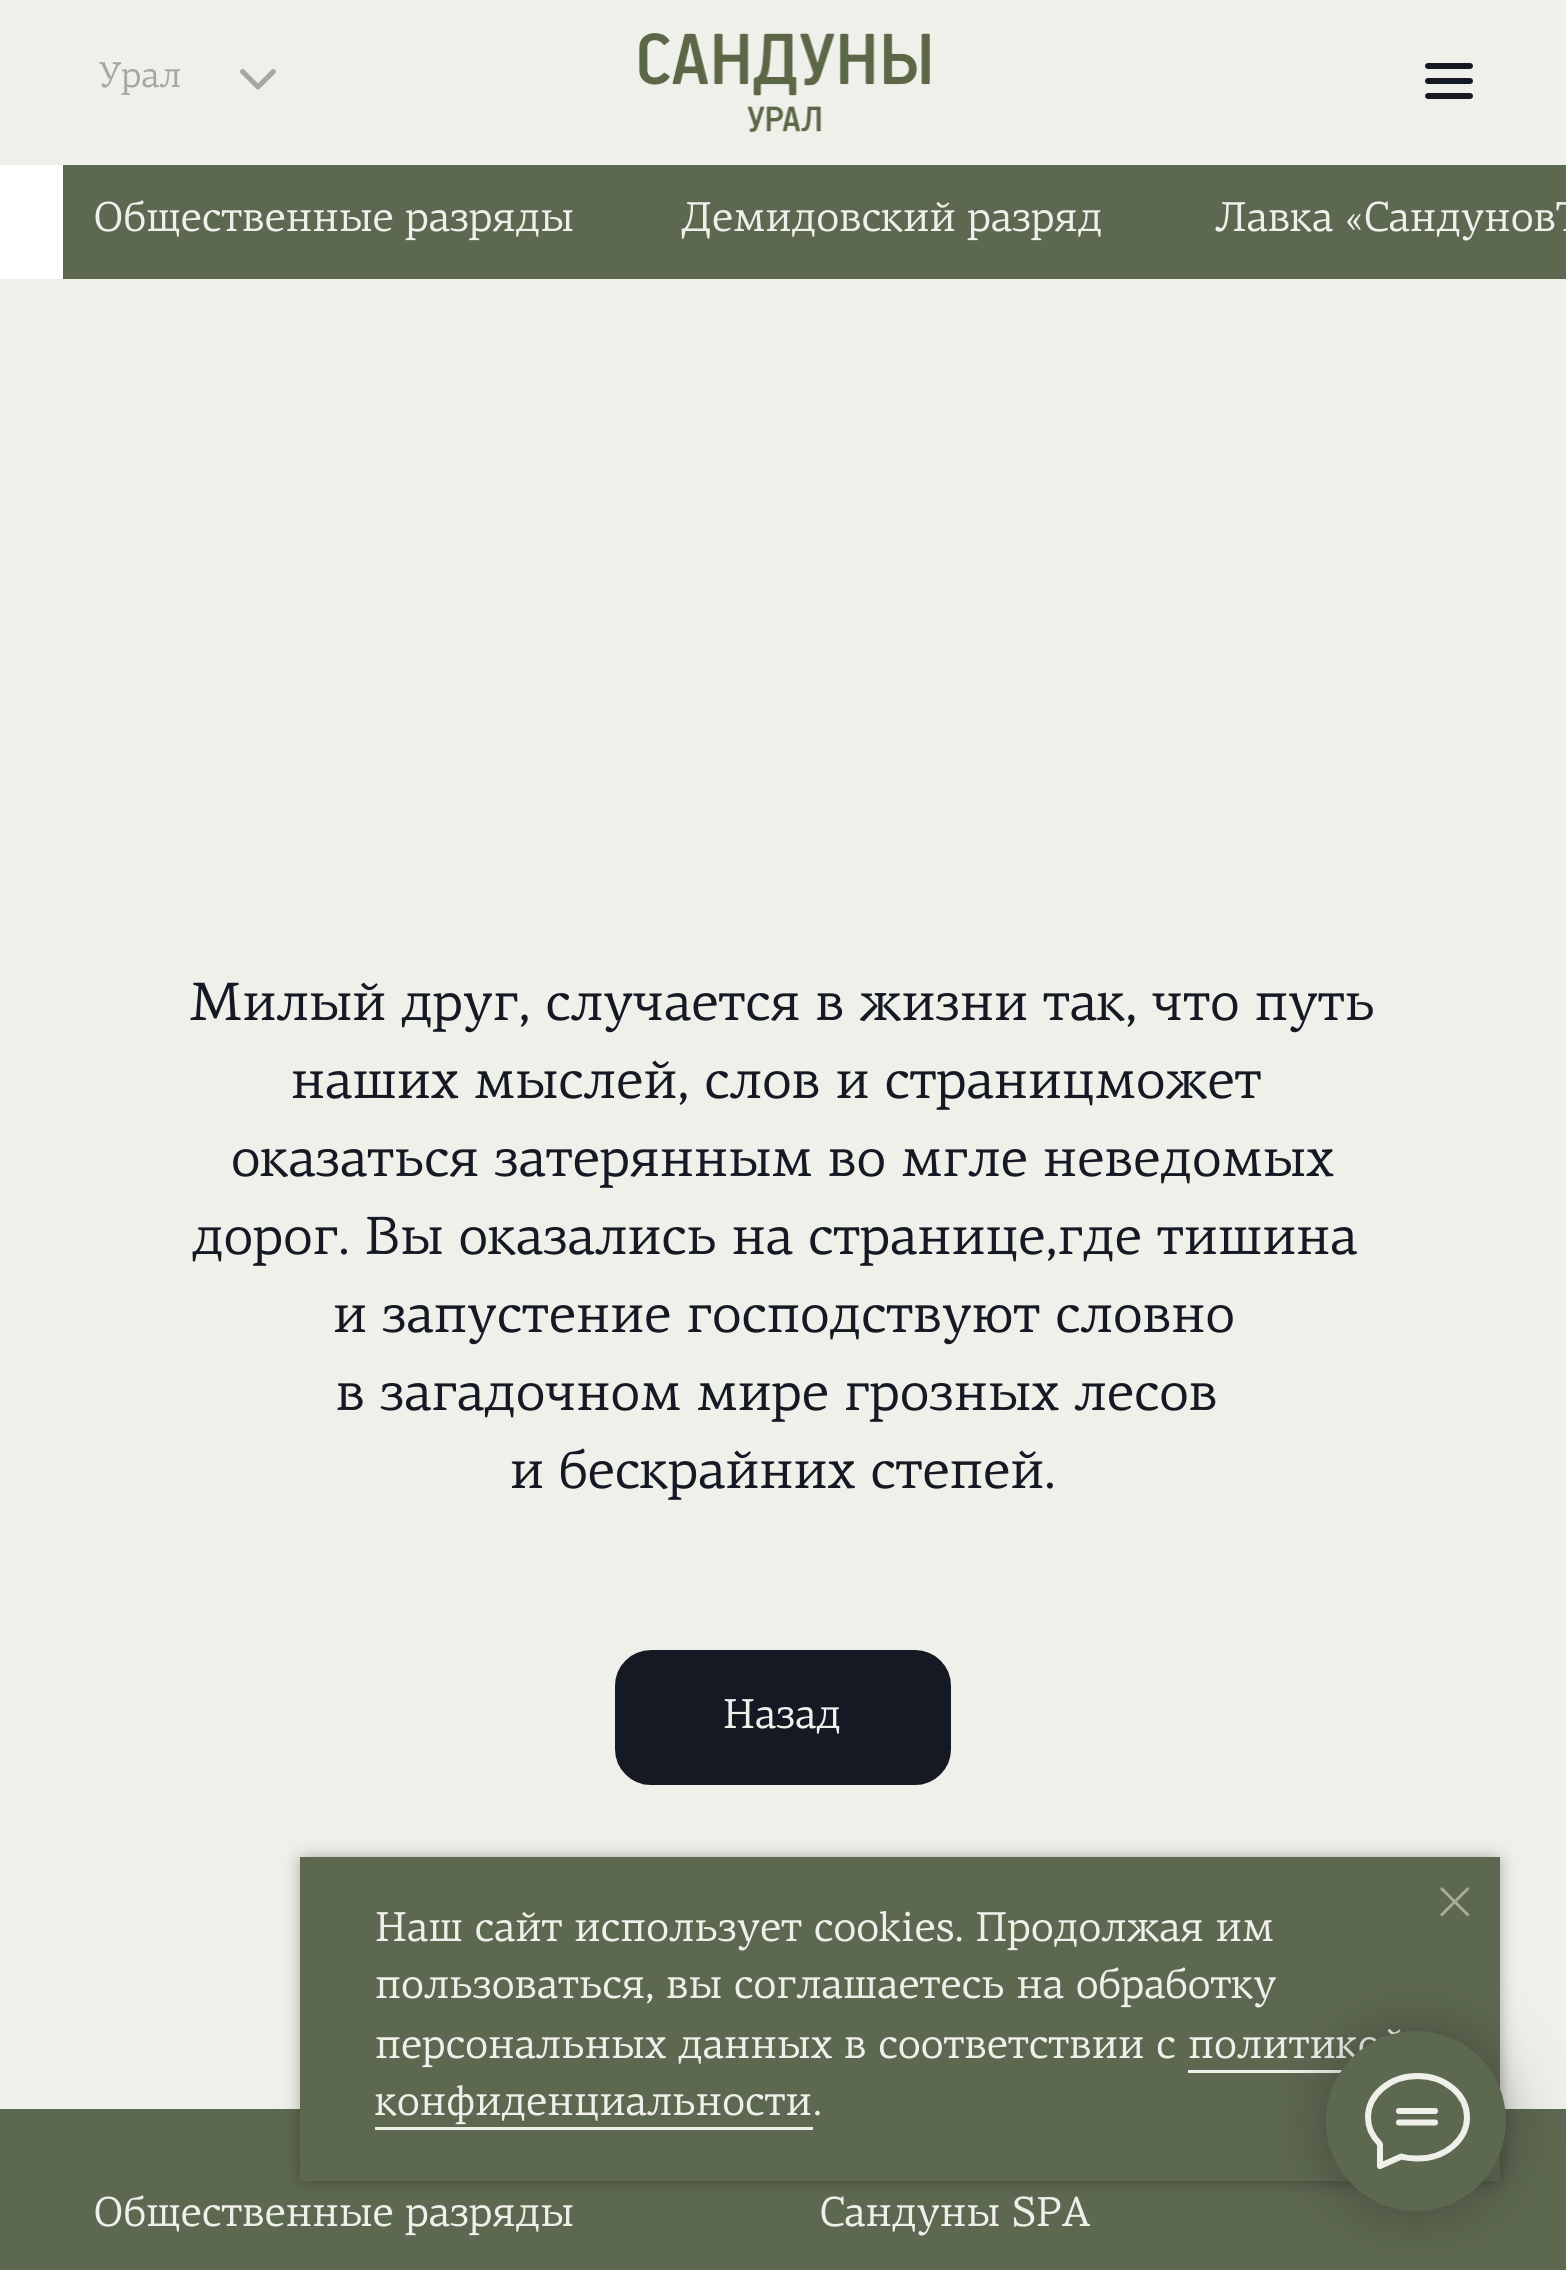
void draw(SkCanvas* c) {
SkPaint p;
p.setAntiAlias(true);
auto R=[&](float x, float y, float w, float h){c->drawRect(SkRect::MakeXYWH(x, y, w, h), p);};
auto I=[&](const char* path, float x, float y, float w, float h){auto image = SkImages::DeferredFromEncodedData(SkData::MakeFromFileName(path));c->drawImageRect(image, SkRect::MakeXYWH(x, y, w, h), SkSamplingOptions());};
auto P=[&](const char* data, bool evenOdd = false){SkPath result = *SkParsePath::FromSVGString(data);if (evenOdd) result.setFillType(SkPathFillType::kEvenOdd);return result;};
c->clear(0xffffffff);
p.setColor(0xfff0f0eb);
R(0,0,1566,165);
I("1.png",99,62,81,33);
I("2.png",240,69,36,21);
I("3.png",639,33,291,99);
I("4.png",1425,63,48,36);
p.setColor(0xff5d6851);
R(63,165,1503,114);
I("5.png",95,200,478,41);
I("6.png",681,202,420,39);
I("7.png",1215,201,351,40);
p.setColor(0xfff0f0eb);
R(0,279,1566,1830);
p.setColor(0xff5d6851);
R(0,2109,1566,161);
I("5.png",95,2195,478,41);
I("22.png",821,2196,270,40);
p.setColor(0x4d000000);
p.setMaskFilter(SkMaskFilter::MakeBlur(kNormal_SkBlurStyle, 7.5));
c->drawRect(SkRect::MakeXYWH(300,1857,1200,324),p);
p.setMaskFilter(nullptr);
p.setColor(0xff5d6851);
R(300,1857,1200,324);
p.setColor(0xffa7ac9e);
c->drawPath(P("M1440 1889l2-2l27.5 27.5l-2 2z",true),p);
c->drawPath(P("M1467.5 1887l2 2l-27.5 27.5l-2-2z",true),p);
I("8.png",376,1911,897,40);
I("9.png",376,1967,900,41);
I("10.png",376,2037,799,31);
I("11.png",1189,2029,212,30);
p.setColor(0xfff0f0eb);
R(1188,2070,154,3);
I("12.png",375,2085,436,40);
I("13.png",815,2110,5,6);
R(375,2127,438,3);
p.setColor(0x4d000000);
p.setMaskFilter(SkMaskFilter::MakeBlur(kNormal_SkBlurStyle, 30));
c->drawRoundRect(SkRect::MakeXYWH(1326,2031,180,180),90,90,p);
p.setMaskFilter(nullptr);
p.setColor(0xff5d6851);
c->drawCircle(1416,2121,90,p);
p.setStroke(true);
p.setStrokeWidth(6);
p.setStrokeCap(SkPaint::kRound_Cap);
p.setStrokeJoin(SkPaint::kRound_Join);
p.setColor(0xfff0f0eb);
c->drawPath(P("M1399 2111h36m-36 11.5h36m-55.5 21c-7-7-11.5-16-11.5-26c0-23 22-41.5 49.5-41.5c27.5 0 49.5 18.5 49.5 41.5c0 22.5-22 41-49.5 41c-5.5 0-11-.5-16-2l-21.5 9.5v-21.5z"),p);
I("14.png",190,982,1183,51);
I("15.png",292,1060,969,50);
I("16.png",233,1148,1101,40);
I("17.png",192,1216,1165,50);
I("18.png",334,1305,899,40);
I("19.png",337,1383,879,39);
I("20.png",511,1448,542,52);
p.setStroke(false);
p.setColor(0xff141923);
c->drawRoundRect(SkRect::MakeXYWH(616.5,1651.5,333,132),34.5,34.5,p);
p.setStroke(true);
p.setStrokeWidth(3);
p.setStrokeCap(SkPaint::kButt_Cap);
p.setStrokeJoin(SkPaint::kMiter_Join);
c->drawRoundRect(SkRect::MakeXYWH(616.5,1651.5,333,132),34.5,34.5,p);
I("21.png",724,1699,116,35);
}
